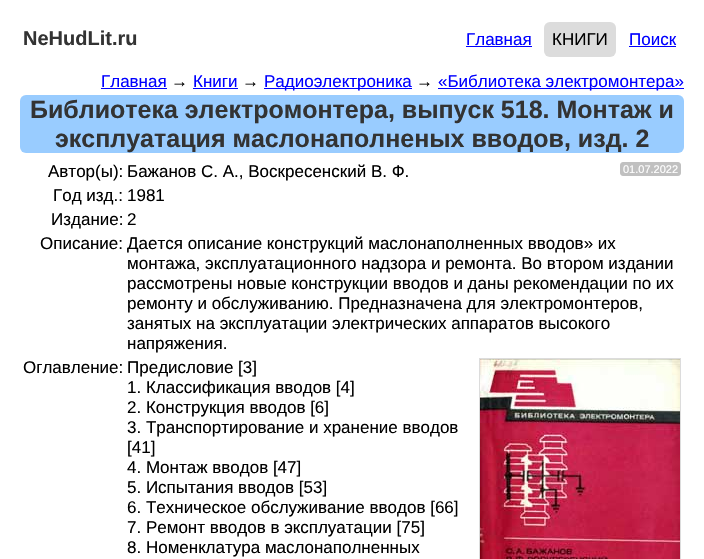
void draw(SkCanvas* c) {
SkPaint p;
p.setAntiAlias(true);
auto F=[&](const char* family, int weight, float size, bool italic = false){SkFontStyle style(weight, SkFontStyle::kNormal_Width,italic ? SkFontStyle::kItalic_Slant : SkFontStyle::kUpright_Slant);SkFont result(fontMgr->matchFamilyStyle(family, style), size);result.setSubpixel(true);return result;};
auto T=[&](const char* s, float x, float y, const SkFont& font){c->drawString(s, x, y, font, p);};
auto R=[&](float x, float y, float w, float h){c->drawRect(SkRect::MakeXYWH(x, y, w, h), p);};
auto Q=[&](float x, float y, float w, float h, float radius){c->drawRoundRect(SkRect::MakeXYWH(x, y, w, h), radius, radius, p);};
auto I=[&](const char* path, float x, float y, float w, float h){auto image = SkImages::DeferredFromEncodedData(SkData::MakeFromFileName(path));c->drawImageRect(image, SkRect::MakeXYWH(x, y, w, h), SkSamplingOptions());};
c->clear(0xffffffff);
auto f1 = F("Liberation Sans",700,20);
p.setColor(0xff333333);
T("NeHudLit.ru",23,45,f1);
auto f2 = F("Liberation Sans",400,17);
p.setColor(0xff0000ff);
T("Главная",466,45,f2);
R(466,46,66,1);
p.setColor(0xffdcdcdc);
Q(544,22,72,35,6);
p.setColor(0xff000000);
T("КНИГИ",552,45,f2);
p.setColor(0xff0000ff);
T("Поиск",629,45,f2);
R(629,46,47,1);
T("Главная",101,87,f2);
R(101,88,66,1);
p.setColor(0xff000000);
T("→",171,87,f2);
p.setColor(0xff0000ff);
T("Книги",193,87,f2);
R(193,88,45,1);
p.setColor(0xff000000);
T("→",242,87,f2);
p.setColor(0xff0000ff);
R(264,88,148,1);
T("Радиоэлектроника",264,87,f2);
p.setColor(0xff000000);
T("→",416,87,f2);
p.setColor(0xff0000ff);
R(438,88,246,1);
T("«Библиотека электромонтера»",438,87,f2);
p.setColor(0xff99ccff);
Q(20,95,664,58,6);
auto f3 = F("Liberation Sans",700,25);
p.setColor(0xff333333);
T("Библиотека электромонтера, выпуск 518. Монтаж и",30,118,f3);
T("эксплуатация маслонаполненых вводов, изд. 2",55,147,f3);
p.setColor(0xff000000);
T("Автор(ы):",48,177,f2);
T("Бажанов С. А., Воскресенский В. Ф.",127,177,f2);
p.setColor(0xffc0c0c0);
c->drawRoundRect(SkRect::MakeXYWH(620.5,162.5,60,13),2.5,2.5,p);
p.setStroke(true);
p.setStrokeWidth(1);
c->drawRoundRect(SkRect::MakeXYWH(620.5,162.5,60,13),2.5,2.5,p);
auto f4 = F("Liberation Sans",400,11);
p.setStroke(false);
p.setColor(0xffffffff);
T("01.07.2022",623,173,f4);
p.setColor(0xff000000);
T("Год изд.:",53,201,f2);
T("1981",127,201,f2);
T("Издание:",51,225,f2);
T("2",127,225,f2);
T("Описание:",40,249,f2);
T("Дается описание конструкций маслонаполненных вводов» их",127,249,f2);
T("монтажа, эксплуатационного надзора и ремонта. Во втором издании",127,269,f2);
T("рассмотрены новые конструкции вводов и даны рекомендации по их",127,289,f2);
T("ремонту и обслуживанию. Предназначена для электромонтеров,",127,309,f2);
T("занятых на эксплуатации электрических аппаратов высокого",127,329,f2);
T("напряжения.",127,349,f2);
T("Оглавление:",23,373,f2);
T("Предисловие [3]",127,373,f2);
p.setStroke(true);
p.setColor(0xffdcdcdc);
c->drawRect(SkRect::MakeXYWH(479.5,358.5,201,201),p);
I("1.png",480,359,200,200);
p.setStroke(false);
p.setColor(0xff000000);
T("1. Классификация вводов [4]",127,393,f2);
T("2. Конструкция вводов [6]",127,413,f2);
T("3. Транспортирование и хранение вводов",127,433,f2);
T("[41]",127,453,f2);
T("4. Монтаж вводов [47]",127,473,f2);
T("5. Испытания вводов [53]",127,493,f2);
T("6. Техническое обслуживание вводов [66]",127,513,f2);
T("7. Ремонт вводов в эксплуатации [75]",127,533,f2);
T("8. Номенклатура маслонаполненных",127,553,f2);
}
